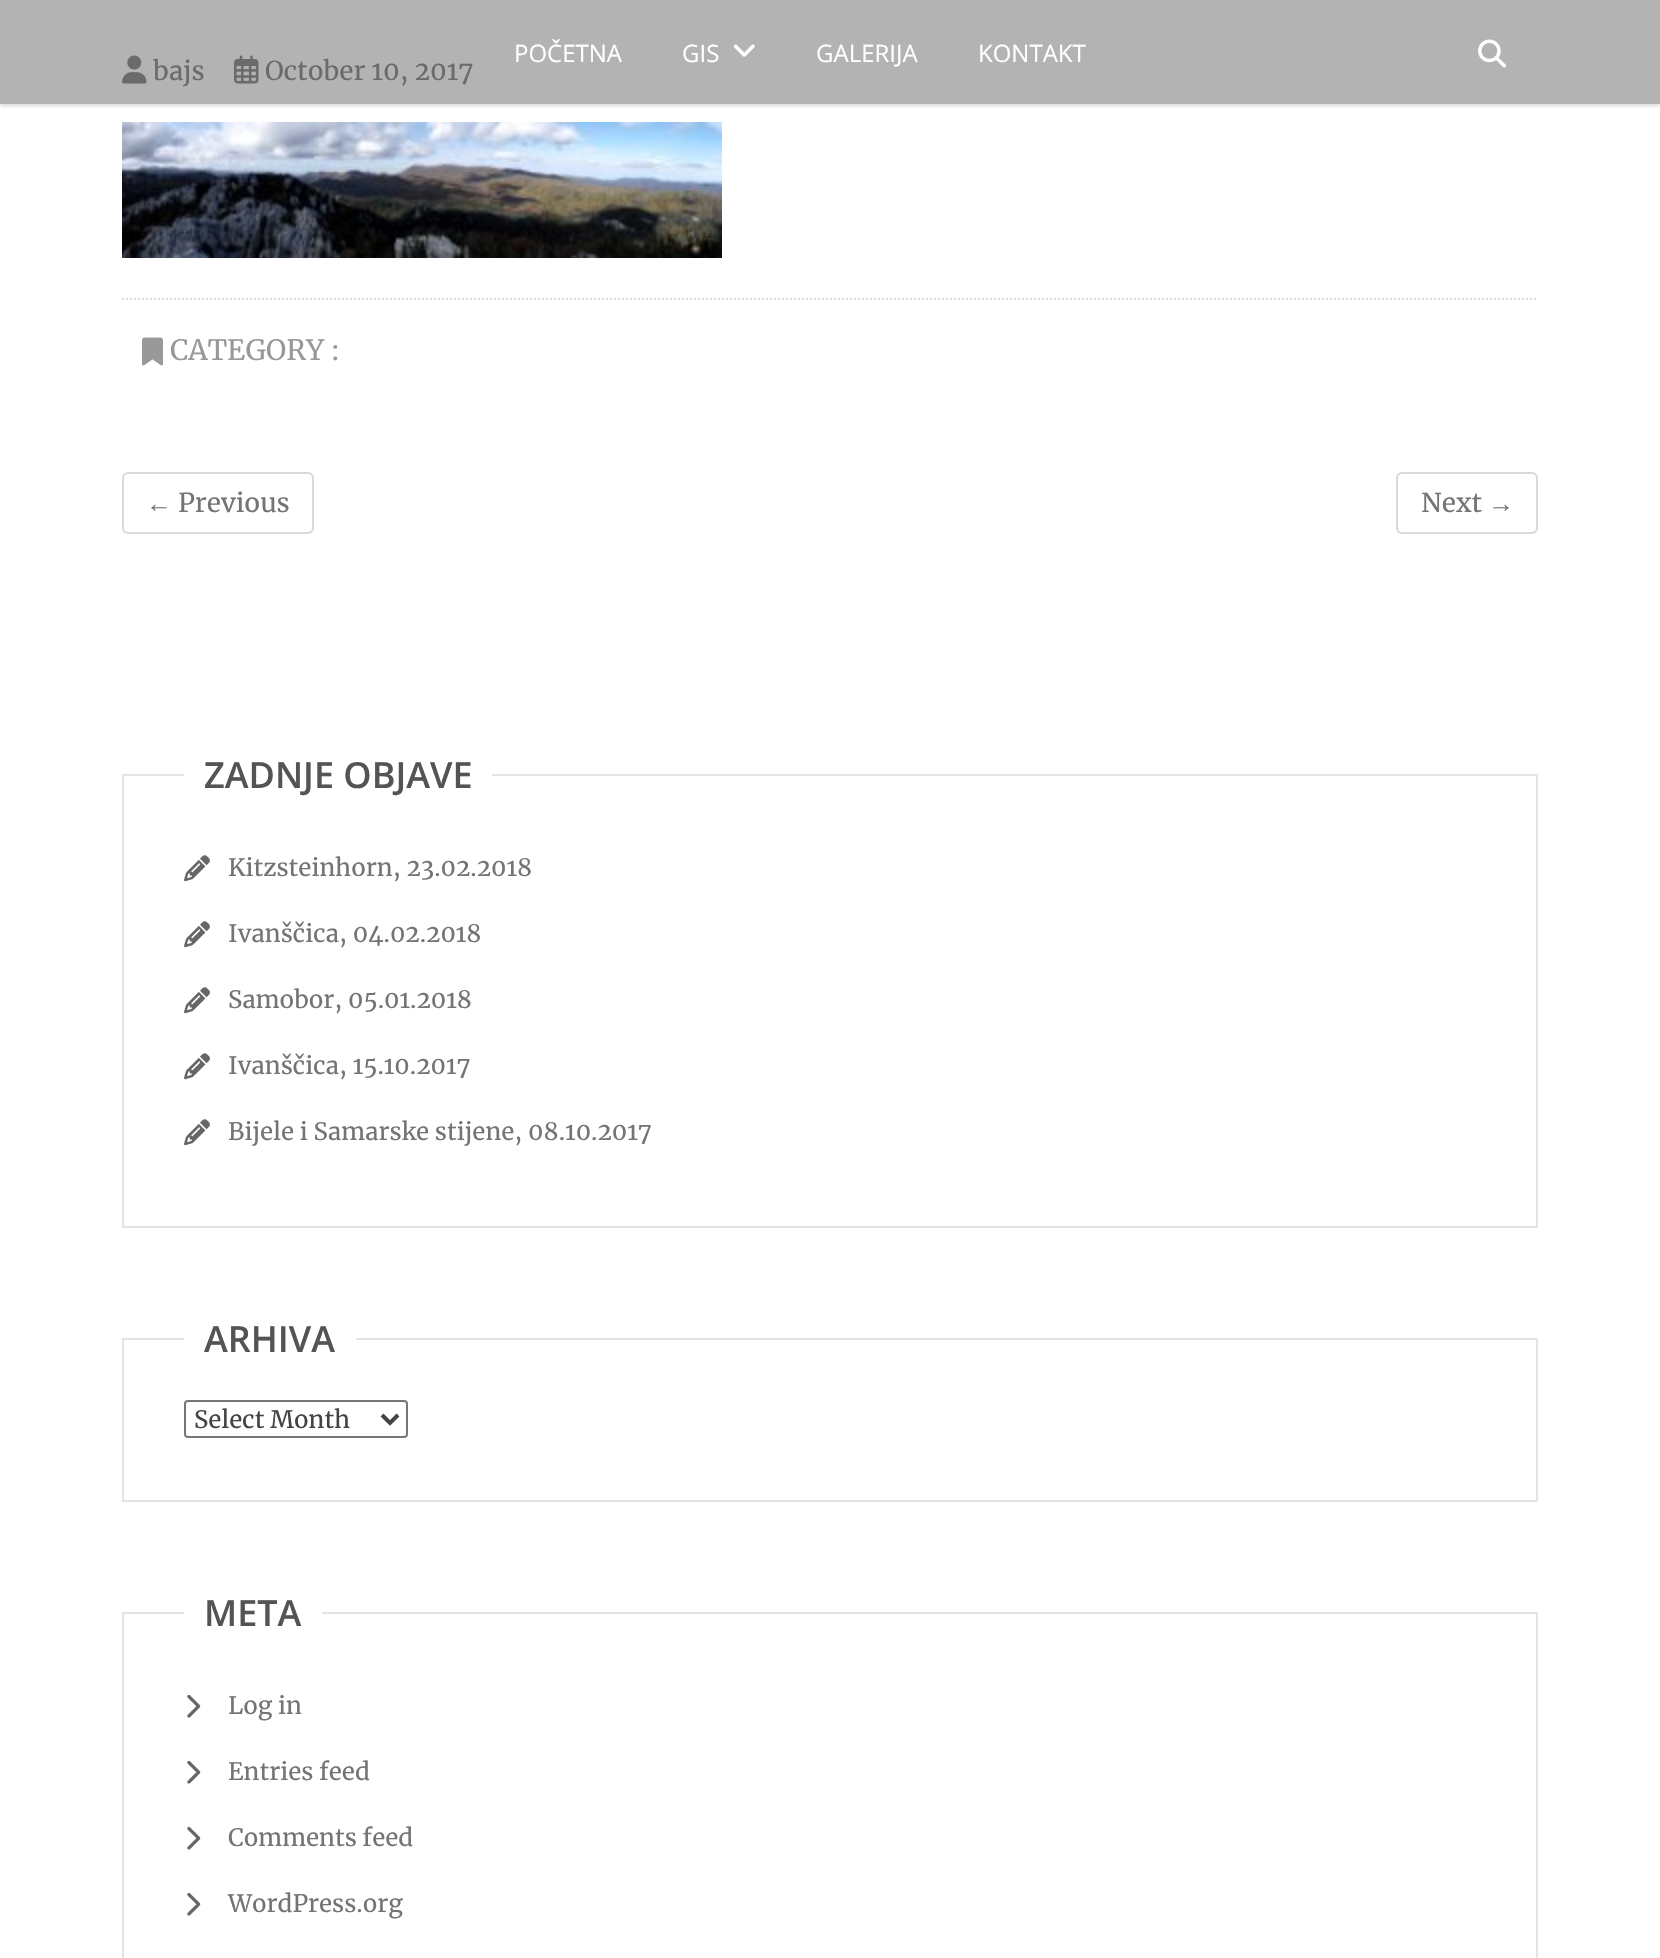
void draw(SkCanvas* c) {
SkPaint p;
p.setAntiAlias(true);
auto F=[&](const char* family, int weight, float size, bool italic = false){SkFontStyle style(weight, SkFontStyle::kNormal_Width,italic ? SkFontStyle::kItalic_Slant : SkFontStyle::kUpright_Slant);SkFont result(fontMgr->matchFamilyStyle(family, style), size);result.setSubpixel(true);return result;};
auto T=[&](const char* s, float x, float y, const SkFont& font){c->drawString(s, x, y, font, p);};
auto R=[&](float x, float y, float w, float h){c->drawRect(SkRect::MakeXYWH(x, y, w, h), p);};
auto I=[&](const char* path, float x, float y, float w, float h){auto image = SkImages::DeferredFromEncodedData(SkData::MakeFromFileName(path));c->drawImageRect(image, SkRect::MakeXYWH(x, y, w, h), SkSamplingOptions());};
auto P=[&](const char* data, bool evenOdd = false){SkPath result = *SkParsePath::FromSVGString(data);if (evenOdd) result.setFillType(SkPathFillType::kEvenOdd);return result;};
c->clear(0xffffffff);
p.setColor(0xffb3b3b3);
R(0,0,1660,104);
I("3.png",122,55,25,29);
I("4.png",234,55,25,29);
c->save();
c->clipRect(SkRect::MakeXYWH(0,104,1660,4));
p.setColor(0x26000000);
p.setMaskFilter(SkMaskFilter::MakeBlur(kNormal_SkBlurStyle, 2));
c->drawRect(SkRect::MakeXYWH(0,2,1660,104),p);
p.setMaskFilter(nullptr);
c->restore();
auto f1 = F("Open Sans",400,24);
p.setColor(0xffffffff);
T("POČETNA",514,62,f1);
T("GIS",682,62,f1);
I("1.png",733,44,22,13);
T("GALERIJA",816,62,f1);
T("KONTAKT",978,62,f1);
I("2.png",1478,39,28,29);
auto f2 = F("Merriweather",400,26);
p.setColor(0xff6b6b6b);
T("bajs",153,80,f2);
T("October 10, 2017",265,80,f2);
I("5.png",122,122,600,136);
p.setStroke(true);
p.setStrokeWidth(2);
p.setColor(0xffdddddd);
p.setPathEffect(SkDashPathEffect::Make({{2,2}}, 0));
c->drawPath(P("M122 299h1416"),p);
p.setPathEffect(nullptr);
I("6.png",142,337,21,29);
auto f3 = F("Merriweather",400,28);
p.setStroke(false);
p.setColor(0xff999999);
T("CATEGORY :",170,360,f3);
p.setStroke(true);
p.setColor(0xffd9d9d9);
c->drawRoundRect(SkRect::MakeXYWH(123,473,190,60),5,5,p);
auto f4 = F("Liberation Sans",400,26);
p.setStroke(false);
p.setColor(0xff747474);
T("←",146,512,f4);
T("Previous",178,512,f2);
p.setStroke(true);
p.setColor(0xffd9d9d9);
c->drawRoundRect(SkRect::MakeXYWH(1397,473,140,60),5,5,p);
p.setStroke(false);
p.setColor(0xff747474);
T("Next",1421,512,f2);
T("→",1488,512,f4);
p.setStroke(true);
p.setColor(0xffe4e4e4);
c->drawRect(SkRect::MakeXYWH(123,775,1414,452),p);
p.setStroke(false);
p.setColor(0xffffffff);
R(184,774,308,2);
auto f5 = F("Open Sans",600,36);
p.setColor(0xff545454);
T("ZADNJE OBJAVE",204,788,f5);
I("7.png",184,855,26,27);
auto f6 = F("Merriweather",400,24);
p.setColor(0xff747474);
T("Kitzsteinhorn, 23.02.2018",228,876,f6);
I("7.png",184,921,26,27);
T("Ivanščica, 04.02.2018",228,942,f6);
I("7.png",184,987,26,27);
T("Samobor, 05.01.2018",228,1008,f6);
I("7.png",184,1053,26,27);
T("Ivanščica, 15.10.2017",228,1074,f6);
I("7.png",184,1119,26,27);
T("Bijele i Samarske stijene, 08.10.2017",228,1140,f6);
p.setStroke(true);
p.setColor(0xffe4e4e4);
c->drawRect(SkRect::MakeXYWH(123,1339,1414,162),p);
p.setStroke(false);
p.setColor(0xffffffff);
R(184,1338,172,2);
p.setColor(0xff545454);
T("ARHIVA",204,1352,f5);
p.setStroke(true);
p.setColor(0xff767676);
c->drawRoundRect(SkRect::MakeXYWH(185,1401,222,36),3,3,p);
p.setStrokeWidth(4);
p.setColor(0xff444444);
c->drawPath(P("M382 1415l8 8l8-8"),p);
p.setStroke(false);
T("Select Month",194,1428,f6);
p.setStroke(true);
p.setStrokeWidth(2);
p.setColor(0xffe4e4e4);
c->drawRect(SkRect::MakeXYWH(123,1613,1414,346),p);
p.setStroke(false);
p.setColor(0xffffffff);
R(184,1612,138,2);
p.setColor(0xff545454);
T("META",204,1626,f5);
I("8.png",187,1694,14,24);
p.setColor(0xff747474);
T("Log in",228,1714,f6);
I("8.png",187,1760,14,24);
T("Entries feed",228,1780,f6);
I("8.png",187,1826,14,24);
T("Comments feed",228,1846,f6);
I("8.png",187,1892,14,24);
T("WordPress.org",228,1912,f6);
}
